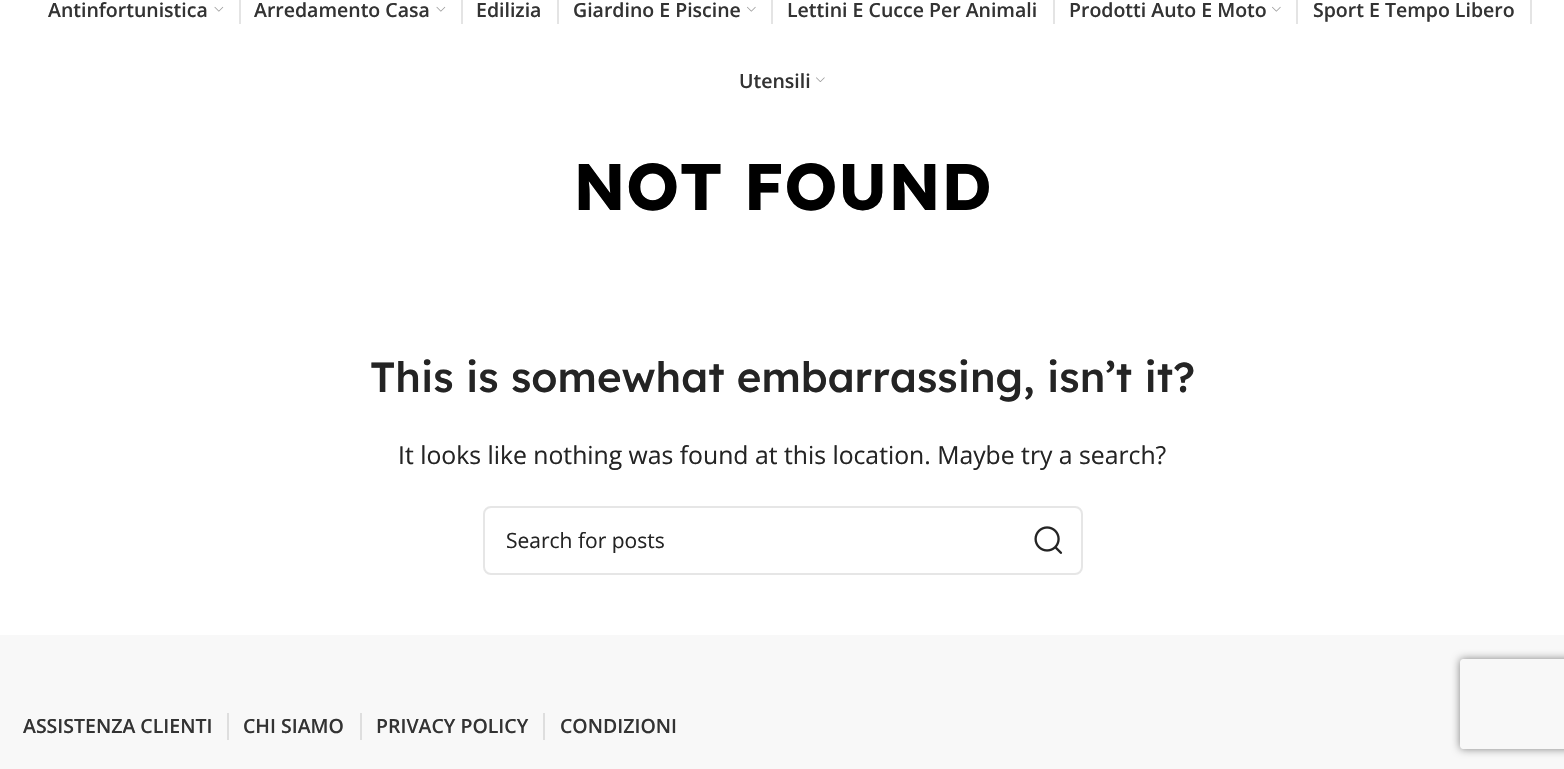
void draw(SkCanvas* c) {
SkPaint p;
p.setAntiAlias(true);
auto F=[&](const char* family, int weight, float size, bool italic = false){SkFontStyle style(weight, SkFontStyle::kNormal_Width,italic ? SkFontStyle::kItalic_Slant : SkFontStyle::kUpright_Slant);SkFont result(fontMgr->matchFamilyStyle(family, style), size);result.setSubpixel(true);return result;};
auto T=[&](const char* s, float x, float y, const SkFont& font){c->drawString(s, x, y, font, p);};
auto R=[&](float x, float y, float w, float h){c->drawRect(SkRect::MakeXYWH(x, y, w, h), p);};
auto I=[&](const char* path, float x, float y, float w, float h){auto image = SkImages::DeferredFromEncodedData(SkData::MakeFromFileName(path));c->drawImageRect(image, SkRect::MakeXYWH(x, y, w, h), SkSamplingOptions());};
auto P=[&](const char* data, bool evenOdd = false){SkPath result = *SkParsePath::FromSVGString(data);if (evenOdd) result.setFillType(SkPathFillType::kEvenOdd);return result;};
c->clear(0xffffffff);
auto f1 = F("Open Sans",600,19.5);
p.setColor(0xff333333);
T("Antinfortunistica",48,17,f1);
I("1.png",214,6,10,6);
p.setColor(0xffe4e4e4);
R(239,0,2,24);
p.setColor(0xff333333);
T("Arredamento Casa",254,17,f1);
I("1.png",436,6,10,6);
p.setColor(0xffe4e4e4);
R(461,0,2,24);
p.setColor(0xff333333);
T("Edilizia",476,17,f1);
p.setColor(0xffe4e4e4);
R(557,0,2,24);
p.setColor(0xff333333);
T("Giardino E Piscine",573,17,f1);
I("2.png",747,6,9,6);
p.setColor(0xffe4e4e4);
R(771,0,2,24);
p.setColor(0xff333333);
T("Lettini E Cucce Per Animali",787,17,f1);
p.setColor(0xffe4e4e4);
R(1053,0,2,24);
p.setColor(0xff333333);
T("Prodotti Auto E Moto",1069,17,f1);
I("2.png",1272,6,9,6);
p.setColor(0xffe4e4e4);
R(1296,0,2,24);
p.setColor(0xff333333);
T("Sport E Tempo Libero",1313,17,f1);
p.setColor(0xffe4e4e4);
R(1530,0,2,24);
p.setColor(0xff333333);
T("Utensili",739,88,f1);
I("3.png",816,77,9,5);
auto f2 = F("Lexend Deca",700,65.75);
p.setColor(0xff000000);
T("NOT FOUND",573,210,f2);
auto f3 = F("Lexend Deca",500,42);
p.setColor(0xff242424);
T("This is somewhat embarrassing, isn’t it?",370,392,f3);
auto f4 = F("Open Sans",400,24.75);
T("It looks like nothing was found at this location. Maybe try a search?",398,464,f4);
p.setStroke(true);
p.setStrokeWidth(2);
p.setColor(0xffe6e6e6);
c->drawRoundRect(SkRect::MakeXYWH(484,507,598,67),7,7,p);
auto f5 = F("Open Sans",400,21);
p.setStroke(false);
p.setColor(0xff242424);
T("Search for posts",506,548,f5);
I("4.png",1034,526,29,28);
p.setColor(0xfff8f8f8);
R(0,635,1564,134);
p.setColor(0xff333333);
T("ASSISTENZA CLIENTI",23,733,f1);
p.setColor(0xffdedede);
R(227,713,2,27);
p.setColor(0xff333333);
T("CHI SIAMO",243,733,f1);
p.setColor(0xffdedede);
R(360,713,2,27);
p.setColor(0xff333333);
T("PRIVACY POLICY",376,733,f1);
p.setColor(0xffdedede);
R(543,713,2,27);
p.setColor(0xff333333);
T("CONDIZIONI",560,733,f1);
c->save();
c->clipPath(P("M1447 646h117v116h-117zm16 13h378c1.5 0 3 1.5 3 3v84c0 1.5-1.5 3-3 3h-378c-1.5 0-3-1.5-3-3v-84c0-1.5 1.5-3 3-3z",true),true);
p.setColor(0xff808080);
p.setMaskFilter(SkMaskFilter::MakeBlur(kNormal_SkBlurStyle, 4));
c->drawRoundRect(SkRect::MakeXYWH(1460,659,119,90),3,3,p);
p.setMaskFilter(nullptr);
c->restore();
}
